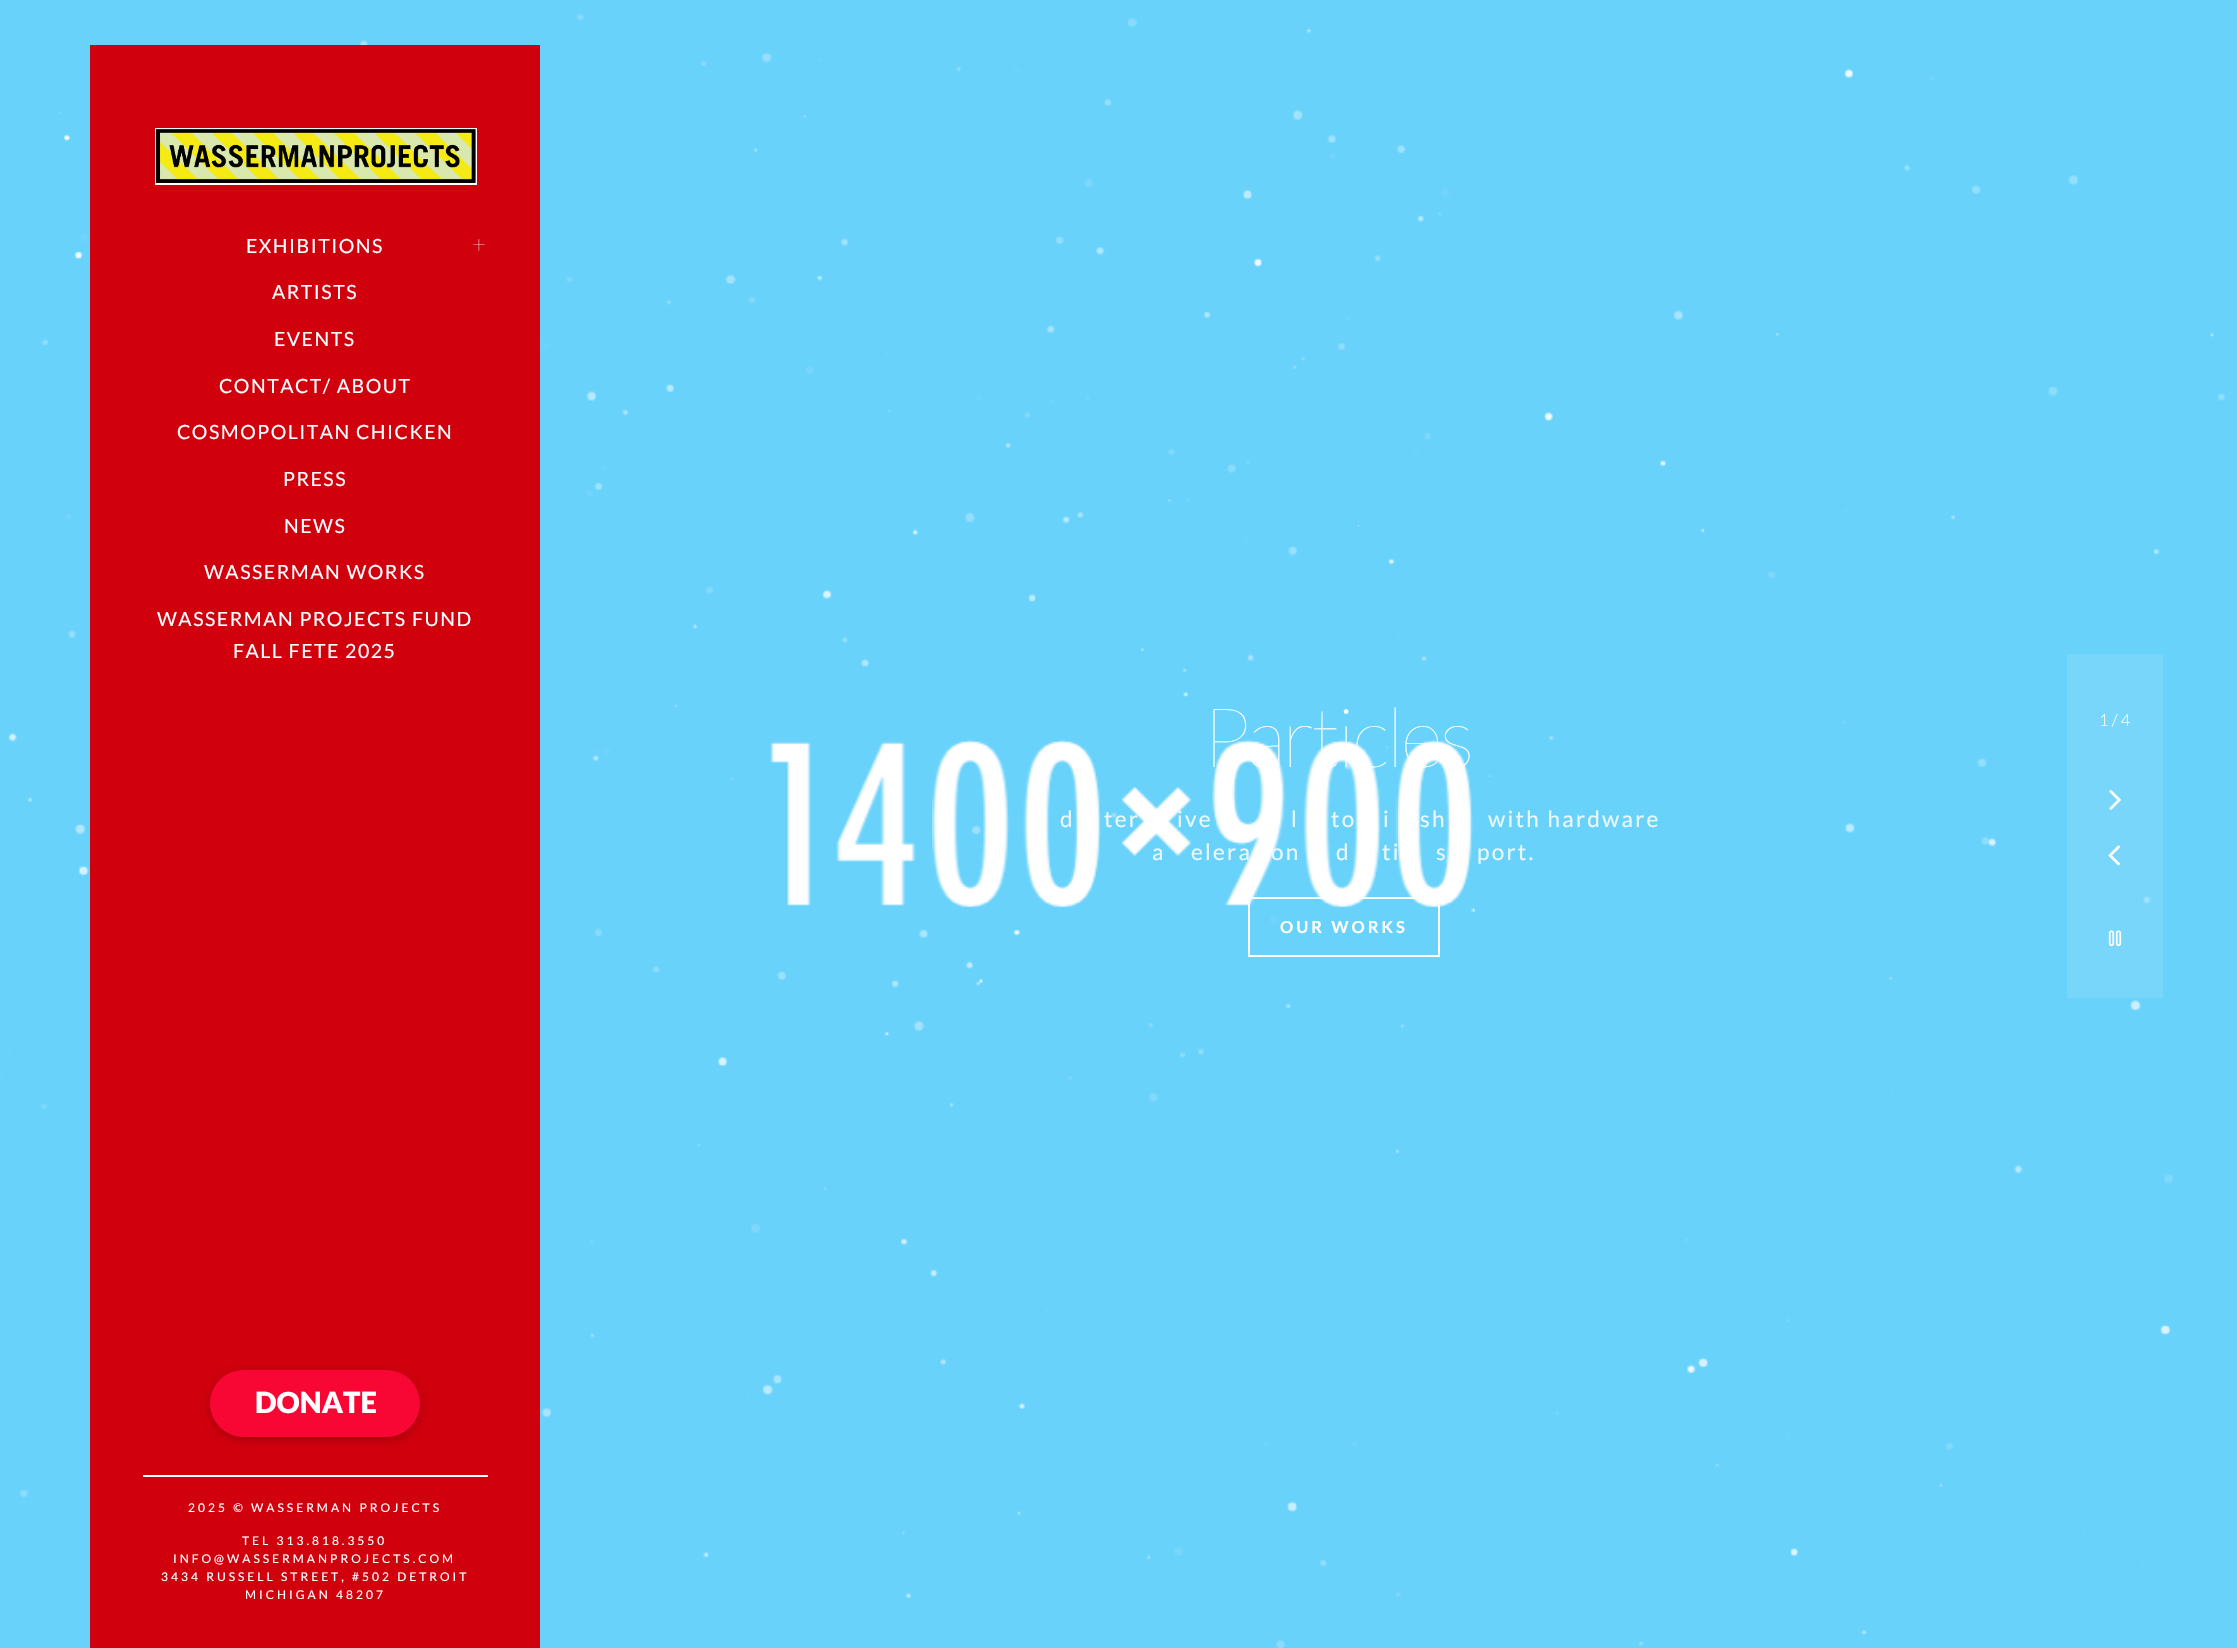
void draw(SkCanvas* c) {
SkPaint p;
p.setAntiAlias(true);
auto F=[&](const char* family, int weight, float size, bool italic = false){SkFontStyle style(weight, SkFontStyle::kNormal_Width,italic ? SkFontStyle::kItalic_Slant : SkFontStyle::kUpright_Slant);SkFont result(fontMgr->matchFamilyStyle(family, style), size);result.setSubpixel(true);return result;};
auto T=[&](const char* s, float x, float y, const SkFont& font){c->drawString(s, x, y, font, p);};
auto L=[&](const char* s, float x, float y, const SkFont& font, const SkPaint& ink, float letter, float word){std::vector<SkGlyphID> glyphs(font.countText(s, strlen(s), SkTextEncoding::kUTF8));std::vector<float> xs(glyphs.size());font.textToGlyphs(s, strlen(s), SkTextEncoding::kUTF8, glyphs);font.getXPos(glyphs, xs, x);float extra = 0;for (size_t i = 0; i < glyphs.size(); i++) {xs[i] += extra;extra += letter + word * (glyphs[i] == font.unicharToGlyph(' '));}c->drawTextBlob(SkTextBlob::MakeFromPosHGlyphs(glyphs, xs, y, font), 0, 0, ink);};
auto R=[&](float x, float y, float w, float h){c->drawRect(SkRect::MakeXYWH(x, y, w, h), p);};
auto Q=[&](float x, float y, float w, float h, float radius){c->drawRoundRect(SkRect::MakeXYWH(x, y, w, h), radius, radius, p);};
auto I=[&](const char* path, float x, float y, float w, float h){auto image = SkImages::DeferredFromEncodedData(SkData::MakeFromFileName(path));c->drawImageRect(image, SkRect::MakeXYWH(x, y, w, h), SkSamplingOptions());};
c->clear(0xffffffff);
I("1.png",0,0,2237,1648);
I("3.png",0,6,2225,1642);
p.setColor(0xffd0000d);
R(90,45,450,1603);
p.setStroke(true);
p.setStrokeWidth(2);
p.setColor(0xffffffff);
c->drawRect(SkRect::MakeXYWH(156,129,320,55),p);
I("2.png",155,128,321,55);
auto f1 = F("Lato",400,19.5);
p.setStroke(false);
L("EXHIBITIONS",246,253,f1,p,1.5,0);
auto f2 = F("Lato",100,24);
L("+",472,253,f2,p,1.5,0);
L("ARTISTS",272,299,f1,p,1.5,0);
L("EVENTS",274,346,f1,p,1.5,0);
L("CONTACT/ ABOUT",219,393,f1,p,1.5,0);
L("COSMOPOLITAN CHICKEN",177,439,f1,p,1.5,0);
L("PRESS",283,486,f1,p,1.5,0);
L("NEWS",284,533,f1,p,1.5,0);
L("WASSERMAN WORKS",204,579,f1,p,1.5,0);
L("WASSERMAN PROJECTS FUND",157,626,f1,p,1.5,0);
L("FALL FETE 2025",233,658,f1,p,1.5,0);
p.setColor(0x33000000);
p.setMaskFilter(SkMaskFilter::MakeBlur(kNormal_SkBlurStyle, 4.5));
c->drawRoundRect(SkRect::MakeXYWH(210,1373,210,67),33.5,33.5,p);
p.setMaskFilter(nullptr);
p.setColor(0xfff80734);
Q(210,1370,210,67,33.5);
auto f3 = F("Lato",900,29);
p.setColor(0xffffffff);
T("DONATE",255,1413,f3);
R(143,1475,345,2);
auto f4 = F("Lato",400,12);
L("2025 © WASSERMAN PROJECTS",188,1512,f4,p,3,0);
L("TEL 313.818.3550",242,1545,f4,p,3,0);
L("INFO@WASSERMANPROJECTS.COM",173,1563,f4,p,3,0);
L("3434 RUSSELL STREET, #502 DETROIT",161,1581,f4,p,3,0);
L("MICHIGAN 48207",245,1599,f4,p,3,0);
auto f5 = F("Lato",100,82.5);
L("Particles",1202,767,f5,p,-3,0);
auto f6 = F("Lato",400,22.5);
p.setColor(0xffebf9fe);
L("d",1060,827,f6,p,2.25,0);
L("ter",1104,827,f6,p,2.25,0);
L("ive",1177,827,f6,p,2.25,0);
L("l",1291,827,f6,p,2.25,0);
L("to",1331,827,f6,p,2.25,0);
L("i",1383,827,f6,p,2.25,0);
L("sh",1420,827,f6,p,2.25,0);
L("with hardware",1488,827,f6,p,2.25,0);
L("a",1152,860,f6,p,2.25,0);
L("elera",1191,860,f6,p,2.25,0);
L("on",1271,860,f6,p,2.25,0);
L("d",1336,860,f6,p,2.25,0);
L("ti",1382,860,f6,p,2.25,0);
L("s",1436,860,f6,p,2.25,0);
L("port.",1477,860,f6,p,2.25,0);
p.setStroke(true);
p.setColor(0xffffffff);
c->drawRect(SkRect::MakeXYWH(1249,898,190,58),p);
auto f7 = F("Lato",700,16.5);
p.setStroke(false);
L("OUR WORKS",1280,933,f7,p,3,0);
p.setColor(0x1affffff);
R(2067,654,96,344);
auto f8 = F("Lato",300,16.5);
p.setColor(0xffffffff);
T("1 / 4",2099,726,f8);
I("4.png",2109,790,12,20);
I("5.png",2108,845,12,21);
I("6.png",2108,930,14,17);
}
